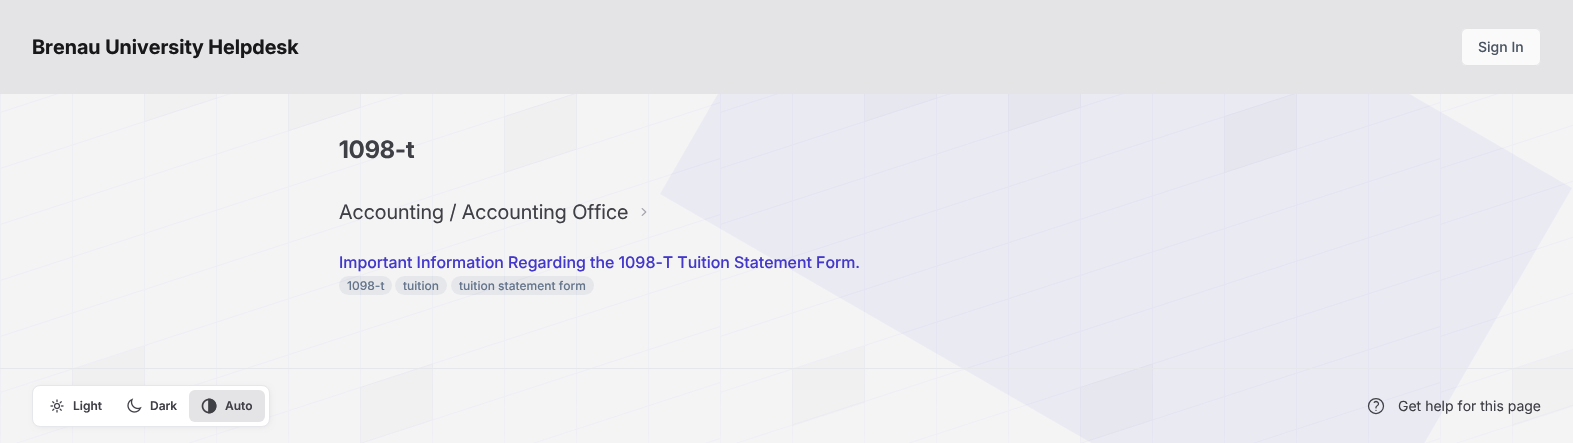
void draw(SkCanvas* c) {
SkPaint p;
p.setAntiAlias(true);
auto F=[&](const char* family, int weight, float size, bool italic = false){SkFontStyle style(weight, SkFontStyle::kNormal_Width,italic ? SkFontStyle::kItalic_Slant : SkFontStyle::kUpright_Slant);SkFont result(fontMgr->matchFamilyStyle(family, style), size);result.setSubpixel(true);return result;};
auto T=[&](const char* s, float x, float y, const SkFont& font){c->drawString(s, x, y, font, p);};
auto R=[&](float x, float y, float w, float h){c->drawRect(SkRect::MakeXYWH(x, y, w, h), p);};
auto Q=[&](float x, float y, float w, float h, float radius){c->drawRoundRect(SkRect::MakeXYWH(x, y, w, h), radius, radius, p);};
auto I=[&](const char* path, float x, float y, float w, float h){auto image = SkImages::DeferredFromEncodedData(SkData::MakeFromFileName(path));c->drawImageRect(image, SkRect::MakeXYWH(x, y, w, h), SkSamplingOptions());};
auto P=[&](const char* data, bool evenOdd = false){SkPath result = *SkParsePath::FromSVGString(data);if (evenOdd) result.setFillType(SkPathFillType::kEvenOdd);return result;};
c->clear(0xfff4f4f5);
I("1.png",0,94,1573,349);
p.setColor(0x0d4338ca);
c->drawPath(P("M891-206l681 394l-231 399l-681-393z"),p);
p.setColor(0xffe4e4e7);
R(0,0,1573,94);
auto f1 = F("Inter",700,20);
p.setColor(0xff18181b);
T("Brenau University Helpdesk",32,54,f1);
p.setColor(0xfffafafa);
Q(1461,28,80,38,6);
p.setStroke(true);
p.setStrokeWidth(1);
p.setColor(0x99d4d4d8);
c->drawRoundRect(SkRect::MakeXYWH(1461.5,28.5,79,37),5.5,5.5,p);
auto f2 = F("Inter",500,14);
p.setStroke(false);
p.setColor(0xff4b5563);
T("Sign In",1478,52,f2);
auto f3 = F("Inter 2",700,24);
p.setColor(0xff3f3f46);
T("1098-t",339,158,f3);
auto f4 = F("Inter 2",400,20);
T("Accounting / Accounting Office",339,219,f4);
I("2.png",641,208,6,8);
auto f5 = F("Inter 2",500,16);
p.setColor(0xff4338ca);
T("Important Information Regarding the 1098-T Tuition Statement Form.",339,268,f5);
p.setColor(0x1a64748b);
Q(339,276,53,19,9.5);
auto f6 = F("Inter",500,12);
p.setColor(0xff64748b);
T("1098-t",347,290,f6);
p.setColor(0x1a64748b);
Q(395,276,52,19,9.5);
p.setColor(0xff64748b);
T("tuition",403,290,f6);
p.setColor(0x1a64748b);
Q(451,276,143,19,9.5);
p.setColor(0xff64748b);
T("tuition statement form",459,290,f6);
p.setColor(0xffe5e7eb);
R(0,368,1573,1);
p.setColor(0x0f000000);
p.setMaskFilter(SkMaskFilter::MakeBlur(kNormal_SkBlurStyle, 2.5));
c->drawRoundRect(SkRect::MakeXYWH(34,387,236,40),7,7,p);
p.setMaskFilter(nullptr);
p.setColor(0xffffffff);
c->drawRoundRect(SkRect::MakeXYWH(32.5,385.5,237,41),7.5,7.5,p);
p.setStroke(true);
p.setColor(0xffe5e7eb);
c->drawRoundRect(SkRect::MakeXYWH(32.5,385.5,237,41),7.5,7.5,p);
I("3.png",50,399,14,14);
auto f7 = F("Inter",600,12);
p.setStroke(false);
p.setColor(0xff3f3f46);
T("Light",73,410,f7);
I("4.png",127,398,15,15);
T("Dark",150,410,f7);
p.setColor(0xffe4e4e7);
Q(189,390,76,32,6);
I("5.png",201,398,16,16);
p.setColor(0xff3f3f46);
T("Auto",225,410,f7);
I("6.png",1367,398,18,17);
auto f8 = F("Inter",400,14);
T("Get help for this page",1398,411,f8);
}
